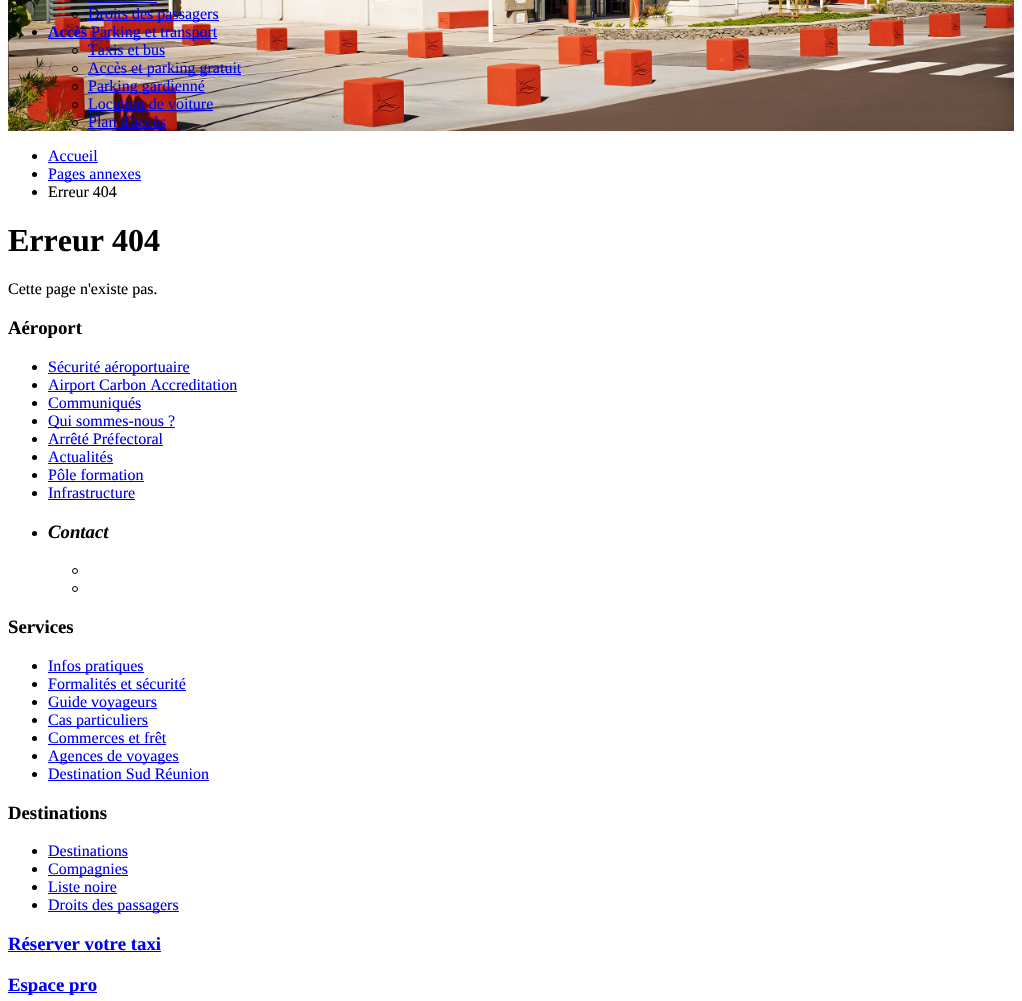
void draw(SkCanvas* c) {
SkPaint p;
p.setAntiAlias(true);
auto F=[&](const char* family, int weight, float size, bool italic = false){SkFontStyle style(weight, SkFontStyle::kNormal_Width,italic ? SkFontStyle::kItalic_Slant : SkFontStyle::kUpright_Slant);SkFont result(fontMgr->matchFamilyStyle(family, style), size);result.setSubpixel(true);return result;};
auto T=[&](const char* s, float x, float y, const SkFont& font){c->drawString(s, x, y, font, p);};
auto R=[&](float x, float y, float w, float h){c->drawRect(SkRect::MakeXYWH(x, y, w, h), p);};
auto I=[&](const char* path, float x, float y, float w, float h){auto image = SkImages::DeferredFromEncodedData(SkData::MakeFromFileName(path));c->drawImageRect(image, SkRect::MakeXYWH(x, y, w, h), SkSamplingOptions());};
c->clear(0xffffffff);
I("1.png",8,0,1006,131);
p.setColor(0xff0000ee);
R(88,2,69,1);
p.setStroke(true);
p.setStrokeWidth(1);
p.setColor(0xff000000);
c->drawCircle(75,15,2.5,p);
p.setStroke(false);
p.setColor(0xff0000ee);
R(88,20,131,1);
auto f1 = F("Liberation Serif",400,16);
T("Droits des passagers",88,19,f1);
p.setColor(0xff000000);
c->drawCircle(34.5,32.5,2.5,p);
auto f2 = F("Liberation Serif",700,16);
p.setColor(0xff0000ee);
T("Accès",48,37,f2);
R(48,38,169,1);
T("Parking et transport",91,37,f1);
p.setStroke(true);
p.setColor(0xff000000);
c->drawCircle(75,51,2.5,p);
p.setStroke(false);
p.setColor(0xff0000ee);
T("Taxis et bus",88,55,f1);
R(88,56,77,1);
p.setStroke(true);
p.setColor(0xff000000);
c->drawCircle(75,69,2.5,p);
p.setStroke(false);
p.setColor(0xff0000ee);
R(88,74,153,1);
T("Accès et parking gratuit",88,73,f1);
p.setStroke(true);
p.setColor(0xff000000);
c->drawCircle(75,87,2.5,p);
p.setStroke(false);
p.setColor(0xff0000ee);
R(88,92,117,1);
T("Parking gardienné",88,91,f1);
p.setStroke(true);
p.setColor(0xff000000);
c->drawCircle(75,105,2.5,p);
p.setStroke(false);
p.setColor(0xff0000ee);
T("Location de voiture",88,109,f1);
R(88,110,125,1);
p.setStroke(true);
p.setColor(0xff000000);
c->drawCircle(75,123,2.5,p);
p.setStroke(false);
p.setColor(0xff0000ee);
T("Plan d'accès",88,127,f1);
R(88,128,78,1);
p.setColor(0xff000000);
c->drawCircle(34.5,156.5,2.5,p);
p.setColor(0xff0000ee);
T("Accueil",48,161,f1);
R(48,162,50,1);
p.setColor(0xff000000);
c->drawCircle(34.5,174.5,2.5,p);
p.setColor(0xff0000ee);
R(48,180,93,1);
T("Pages annexes",48,179,f1);
p.setColor(0xff000000);
c->drawCircle(34.5,192.5,2.5,p);
T("Erreur 404",48,197,f1);
auto f3 = F("Liberation Serif",700,32);
T("Erreur 404",8,251,f3);
T("Cette page n'existe pas.",8,294,f1);
auto f4 = F("Liberation Serif",700,18.75);
T("Aéroport",8,334,f4);
c->drawCircle(34.5,367.5,2.5,p);
p.setColor(0xff0000ee);
R(48,373,142,1);
T("Sécurité aéroportuaire",48,372,f1);
p.setColor(0xff000000);
c->drawCircle(34.5,385.5,2.5,p);
p.setColor(0xff0000ee);
R(48,391,189,1);
T("Airport Carbon Accreditation",48,390,f1);
p.setColor(0xff000000);
c->drawCircle(34.5,403.5,2.5,p);
p.setColor(0xff0000ee);
R(48,409,93,1);
T("Communiqués",48,408,f1);
p.setColor(0xff000000);
c->drawCircle(34.5,421.5,2.5,p);
p.setColor(0xff0000ee);
R(48,427,127,1);
T("Qui sommes-nous ?",48,426,f1);
p.setColor(0xff000000);
c->drawCircle(34.5,439.5,2.5,p);
p.setColor(0xff0000ee);
T("Arrêté Préfectoral",48,444,f1);
R(48,445,115,1);
p.setColor(0xff000000);
c->drawCircle(34.5,457.5,2.5,p);
p.setColor(0xff0000ee);
T("Actualités",48,462,f1);
R(48,463,65,1);
p.setColor(0xff000000);
c->drawCircle(34.5,475.5,2.5,p);
p.setColor(0xff0000ee);
T("Pôle formation",48,480,f1);
R(48,481,96,1);
p.setColor(0xff000000);
c->drawCircle(34.5,493.5,2.5,p);
p.setColor(0xff0000ee);
T("Infrastructure",48,498,f1);
R(48,499,87,1);
p.setColor(0xff000000);
c->drawCircle(34.5,533.5,2.5,p);
auto f5 = F("Liberation Serif",700,18.75,true);
T("Contact",48,538,f5);
p.setStroke(true);
c->drawCircle(75,571,2.5,p);
c->drawCircle(75,589,2.5,p);
p.setStroke(false);
T("Services",8,633,f4);
c->drawCircle(34.5,666.5,2.5,p);
p.setColor(0xff0000ee);
R(48,672,96,1);
T("Infos pratiques",48,671,f1);
p.setColor(0xff000000);
c->drawCircle(34.5,684.5,2.5,p);
p.setColor(0xff0000ee);
T("Formalités et sécurité",48,689,f1);
R(48,690,138,1);
p.setColor(0xff000000);
c->drawCircle(34.5,702.5,2.5,p);
p.setColor(0xff0000ee);
R(48,708,109,1);
T("Guide voyageurs",48,707,f1);
p.setColor(0xff000000);
c->drawCircle(34.5,720.5,2.5,p);
p.setColor(0xff0000ee);
R(48,726,100,1);
T("Cas particuliers",48,725,f1);
p.setColor(0xff000000);
c->drawCircle(34.5,738.5,2.5,p);
p.setColor(0xff0000ee);
T("Commerces et frêt",48,743,f1);
R(48,744,118,1);
p.setColor(0xff000000);
c->drawCircle(34.5,756.5,2.5,p);
p.setColor(0xff0000ee);
R(48,762,131,1);
T("Agences de voyages",48,761,f1);
p.setColor(0xff000000);
c->drawCircle(34.5,774.5,2.5,p);
p.setColor(0xff0000ee);
T("Destination Sud Réunion",48,779,f1);
R(48,780,161,1);
p.setColor(0xff000000);
T("Destinations",8,819,f4);
c->drawCircle(34.5,851.5,2.5,p);
p.setColor(0xff0000ee);
T("Destinations",48,856,f1);
R(48,857,80,1);
p.setColor(0xff000000);
c->drawCircle(34.5,869.5,2.5,p);
p.setColor(0xff0000ee);
R(48,875,80,1);
T("Compagnies",48,874,f1);
p.setColor(0xff000000);
c->drawCircle(34.5,887.5,2.5,p);
p.setColor(0xff0000ee);
T("Liste noire",48,892,f1);
R(48,893,69,1);
p.setColor(0xff000000);
c->drawCircle(34.5,905.5,2.5,p);
p.setColor(0xff0000ee);
R(48,911,131,1);
T("Droits des passagers",48,910,f1);
T("Réserver votre taxi",8,950,f4);
R(8,951,153,1);
R(8,992,89,1);
T("Espace pro",8,991,f4);
}
